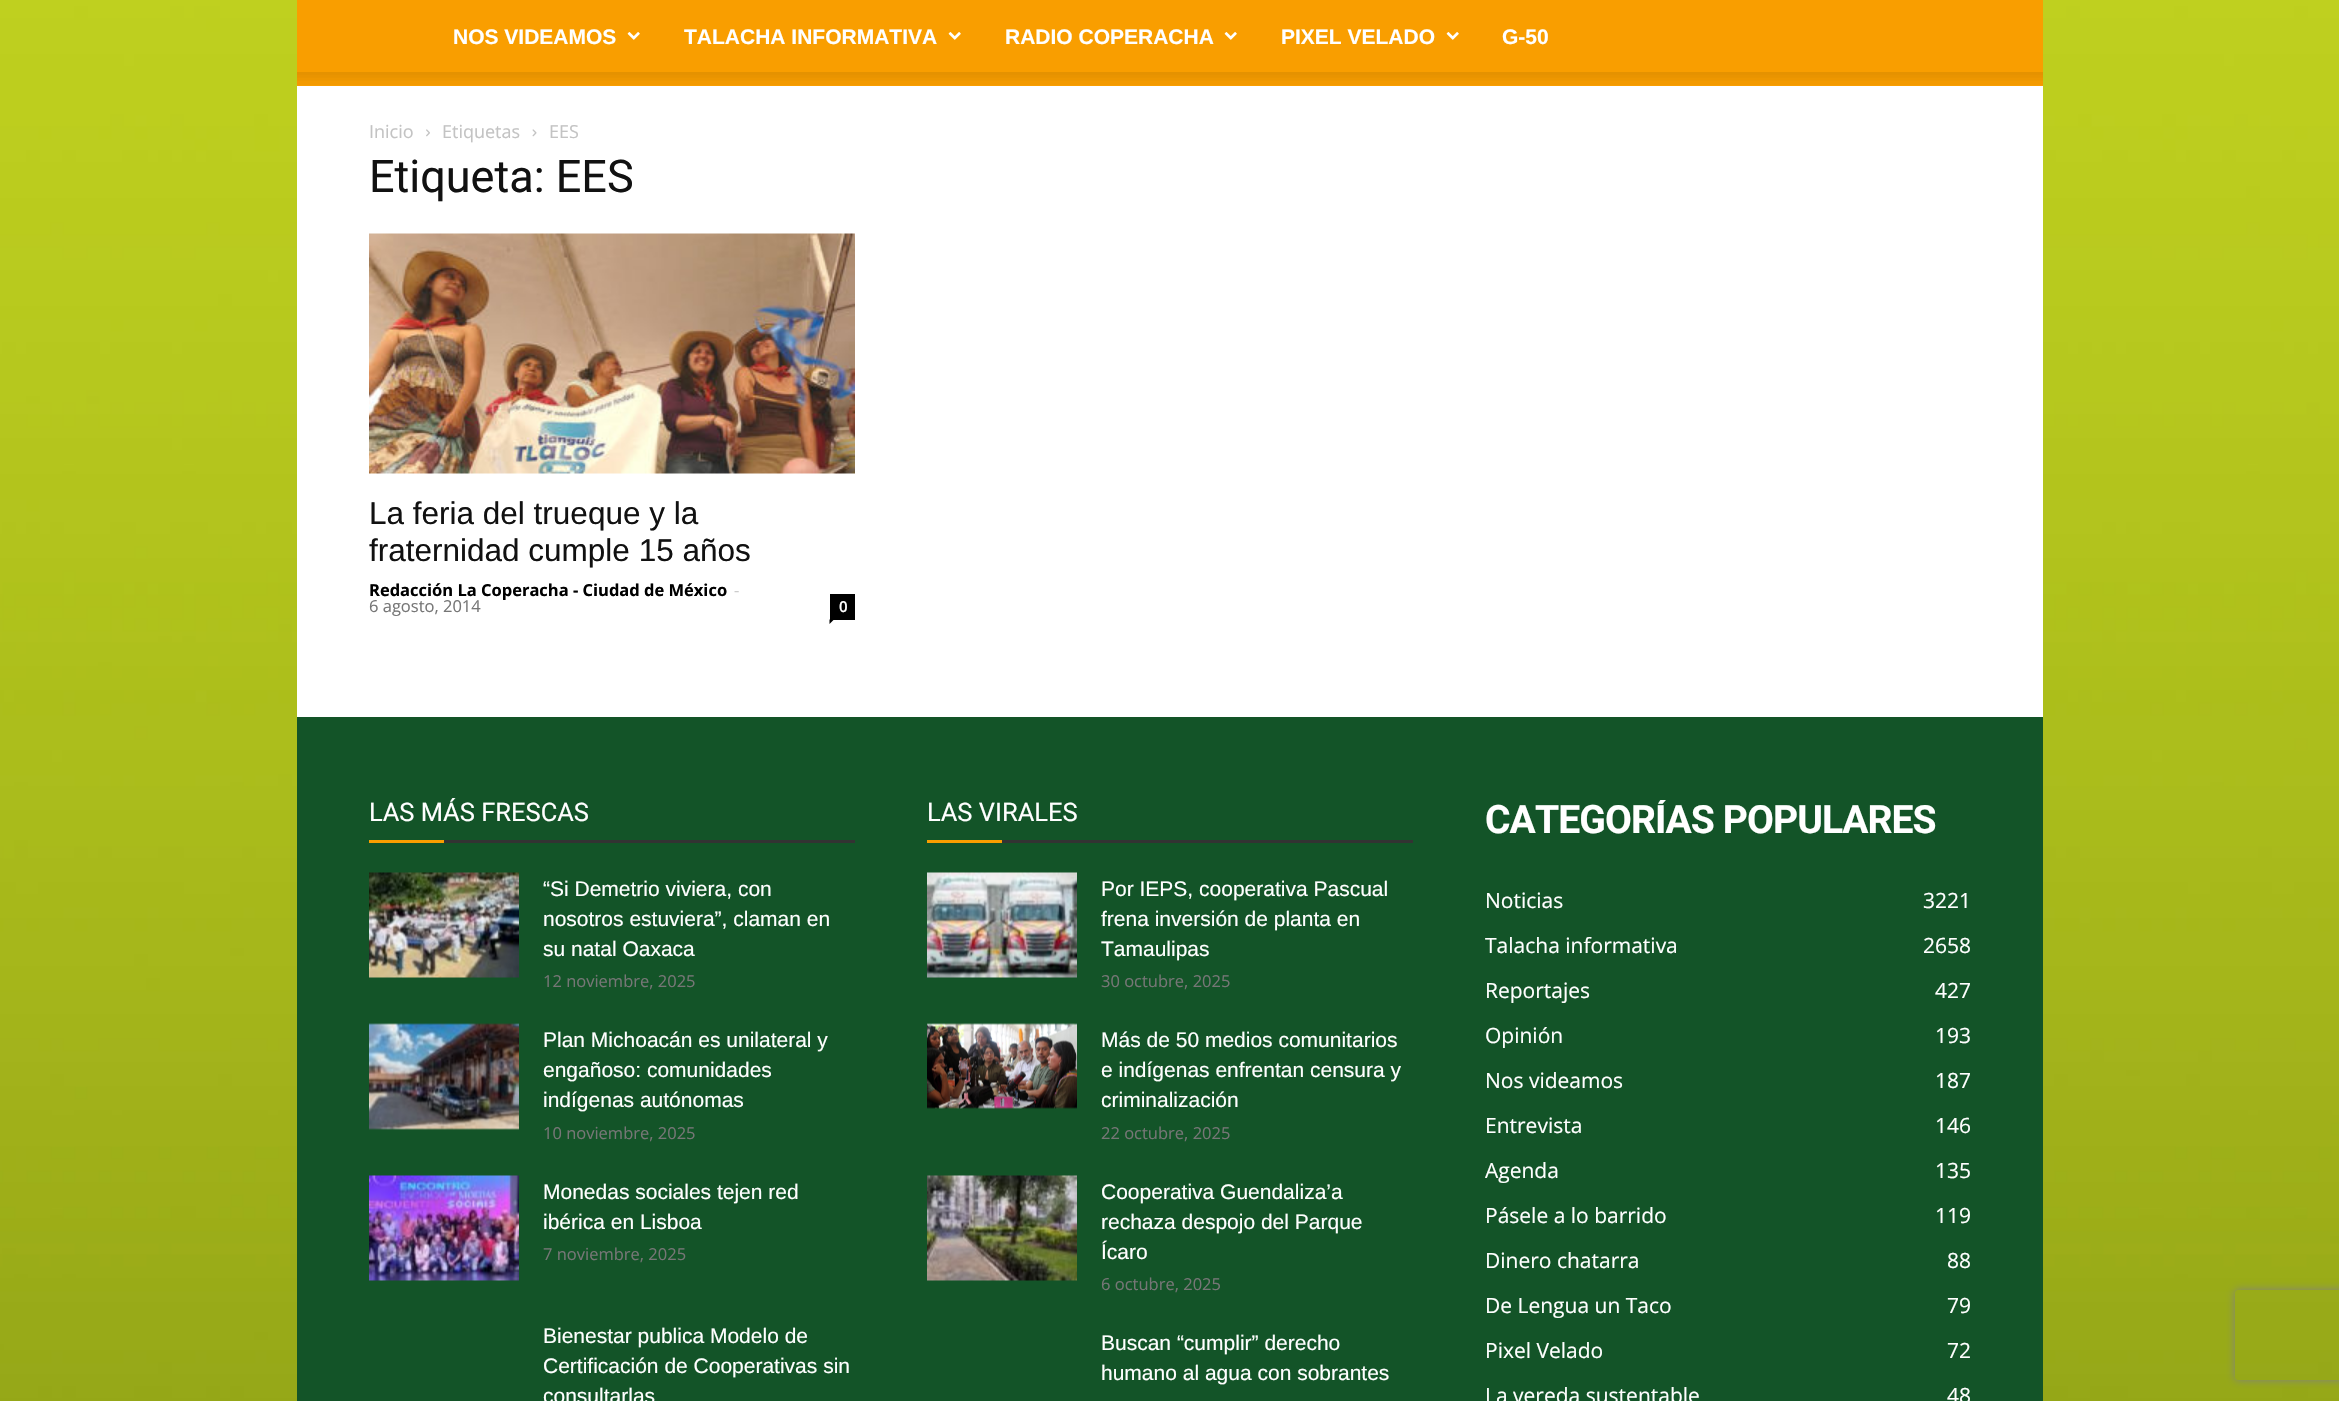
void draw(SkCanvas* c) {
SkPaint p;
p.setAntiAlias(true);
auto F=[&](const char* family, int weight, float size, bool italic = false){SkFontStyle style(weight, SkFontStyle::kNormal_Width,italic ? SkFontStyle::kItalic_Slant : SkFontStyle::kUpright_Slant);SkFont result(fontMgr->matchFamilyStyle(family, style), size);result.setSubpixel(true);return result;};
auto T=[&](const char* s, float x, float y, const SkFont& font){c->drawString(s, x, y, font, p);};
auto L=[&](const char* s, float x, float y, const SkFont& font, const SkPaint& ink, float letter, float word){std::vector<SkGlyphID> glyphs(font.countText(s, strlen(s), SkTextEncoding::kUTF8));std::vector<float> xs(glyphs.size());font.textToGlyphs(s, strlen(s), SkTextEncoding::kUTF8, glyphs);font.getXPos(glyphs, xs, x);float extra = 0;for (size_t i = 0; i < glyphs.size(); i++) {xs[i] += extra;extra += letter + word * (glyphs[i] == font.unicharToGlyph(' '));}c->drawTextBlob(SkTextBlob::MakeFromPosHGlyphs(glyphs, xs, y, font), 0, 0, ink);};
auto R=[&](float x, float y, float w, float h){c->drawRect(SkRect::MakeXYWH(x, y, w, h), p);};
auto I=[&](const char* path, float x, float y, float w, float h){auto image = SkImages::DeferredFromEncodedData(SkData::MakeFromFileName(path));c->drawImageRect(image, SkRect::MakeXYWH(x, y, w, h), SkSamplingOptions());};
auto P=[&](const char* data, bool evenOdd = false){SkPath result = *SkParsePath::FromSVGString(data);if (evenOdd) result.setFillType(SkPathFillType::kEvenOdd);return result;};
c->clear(0xffffffff);
I("1.png",0,0,2339,1401);
p.setColor(0xfff99e00);
R(297,0,1746,86);
auto f1 = F("Liberation Sans",700,21);
p.setColor(0xffffffff);
T("NOS VIDEAMOS",453,44,f1);
I("2.png",627,32,13,8);
T("TALACHA INFORMATIVA",684,44,f1);
I("2.png",948,32,13,8);
T("RADIO COPERACHA",1005,44,f1);
I("2.png",1224,32,13,8);
T("PIXEL VELADO",1281,44,f1);
I("2.png",1446,32,13,8);
T("G-50",1502,44,f1);
I("3.png",297,72,1746,13);
R(297,86,1746,631);
auto f2 = F("Open Sans",400,18);
p.setColor(0xffc3c3c3);
T("Inicio",369,138,f2);
I("4.png",426,129,4,8);
T("Etiquetas",442,138,f2);
I("5.png",532,129,5,8);
T("EES",549,138,f2);
auto f3 = F("Roboto",400,45);
p.setColor(0xff111111);
T("Etiqueta: EES",369,192,f3);
I("6.png",369,233,486,241);
auto f4 = F("Liberation Sans",400,31.5);
T("La feria del trueque y la",369,524,f4);
T("fraternidad cumple 15 años",369,561,f4);
auto f5 = F("Open Sans",700,16.5);
p.setColor(0xff000000);
T("Redacción La Coperacha - Ciudad de México",369,596,f5);
auto f6 = F("Open Sans",400,16.5);
p.setColor(0xffcccccc);
T("-",734,596,f6);
p.setColor(0xff767676);
T("6 agosto, 2014",369,612,f6);
p.setColor(0xff000000);
R(830,594,25,26);
auto f7 = F("Open Sans",600,15);
p.setColor(0xffffffff);
T("0",839,612,f7);
p.setColor(0xff000000);
c->drawPath(P("M829.5 619.5h4.5l-4.5 4.5z"),p);
p.setColor(0xff135428);
R(297,717,1746,684);
auto f8 = F("Roboto",400,25.5);
p.setColor(0xffffffff);
T("LAS MÁS FRESCAS",369,821,f8);
p.setColor(0xfff99e00);
R(369,840,75,3);
p.setColor(0xff333333);
R(444,840,411,3);
I("7.png",369,872,150,106);
auto f9 = F("Liberation Sans",400,21);
p.setColor(0xffffffff);
T("“Si Demetrio viviera, con",543,896,f9);
T("nosotros estuviera”, claman en",543,926,f9);
T("su natal Oaxaca",543,956,f9);
p.setColor(0xff767676);
T("12 noviembre, 2025",543,987,f6);
I("8.png",369,1023,150,107);
p.setColor(0xffffffff);
T("Plan Michoacán es unilateral y",543,1047,f9);
T("engañoso: comunidades",543,1077,f9);
T("indígenas autónomas",543,1107,f9);
p.setColor(0xff767676);
T("10 noviembre, 2025",543,1139,f6);
I("9.png",369,1175,150,106);
p.setColor(0xffffffff);
T("Monedas sociales tejen red",543,1199,f9);
T("ibérica en Lisboa",543,1229,f9);
p.setColor(0xff767676);
T("7 noviembre, 2025",543,1260,f6);
p.setColor(0xffffffff);
T("Bienestar publica Modelo de",543,1343,f9);
T("Certificación de Cooperativas sin",543,1373,f9);
T("consultarlas",543,1403,f9);
T("LAS VIRALES",927,821,f8);
p.setColor(0xfff99e00);
R(927,840,75,3);
p.setColor(0xff333333);
R(1002,840,411,3);
I("10.png",927,872,150,106);
p.setColor(0xffffffff);
T("Por IEPS, cooperativa Pascual",1101,896,f9);
T("frena inversión de planta en",1101,926,f9);
T("Tamaulipas",1101,956,f9);
p.setColor(0xff767676);
T("30 octubre, 2025",1101,987,f6);
I("11.png",927,1023,150,86);
p.setColor(0xffffffff);
T("Más de 50 medios comunitarios",1101,1047,f9);
T("e indígenas enfrentan censura y",1101,1077,f9);
T("criminalización",1101,1107,f9);
p.setColor(0xff767676);
T("22 octubre, 2025",1101,1139,f6);
I("12.png",927,1175,150,106);
p.setColor(0xffffffff);
T("Cooperativa Guendaliza’a",1101,1199,f9);
T("rechaza despojo del Parque",1101,1229,f9);
T("Ícaro",1101,1259,f9);
p.setColor(0xff767676);
T("6 octubre, 2025",1101,1290,f6);
p.setColor(0xffffffff);
T("Buscan “cumplir” derecho",1101,1350,f9);
T("humano al agua con sobrantes",1101,1380,f9);
c->save();
c->clipRect(SkRect::MakeXYWH(1485,800,486,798));
auto f10 = F("Roboto",700,39);
L("CATEGORÍAS POPULARES",1485,833,f10,p,-.9,0);
c->restore();
auto f11 = F("Open Sans",400,21);
T("Noticias",1485,908,f11);
T("3221",1923,908,f11);
T("Talacha informativa",1485,953,f11);
T("2658",1923,953,f11);
T("Reportajes",1485,998,f11);
T("427",1935,998,f11);
T("Opinión",1485,1043,f11);
T("193",1935,1043,f11);
T("Nos videamos",1485,1088,f11);
T("187",1935,1088,f11);
T("Entrevista",1485,1133,f11);
T("146",1935,1133,f11);
T("Agenda",1485,1178,f11);
T("135",1935,1178,f11);
T("Pásele a lo barrido",1485,1223,f11);
T("119",1935,1223,f11);
T("Dinero chatarra",1485,1268,f11);
T("88",1947,1268,f11);
T("De Lengua un Taco",1485,1313,f11);
T("79",1947,1313,f11);
T("Pixel Velado",1485,1358,f11);
T("72",1947,1358,f11);
T("La vereda sustentable",1485,1403,f11);
T("48",1947,1403,f11);
c->save();
c->clipPath(P("M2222 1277h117v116h-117zm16 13h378c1.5 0 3 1.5 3 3v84c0 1.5-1.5 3-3 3h-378c-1.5 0-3-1.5-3-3v-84c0-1.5 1.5-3 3-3z",true),true);
p.setColor(0xff808080);
p.setMaskFilter(SkMaskFilter::MakeBlur(kNormal_SkBlurStyle, 4));
c->drawRoundRect(SkRect::MakeXYWH(2235,1290,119,90),3,3,p);
p.setMaskFilter(nullptr);
c->restore();
}
